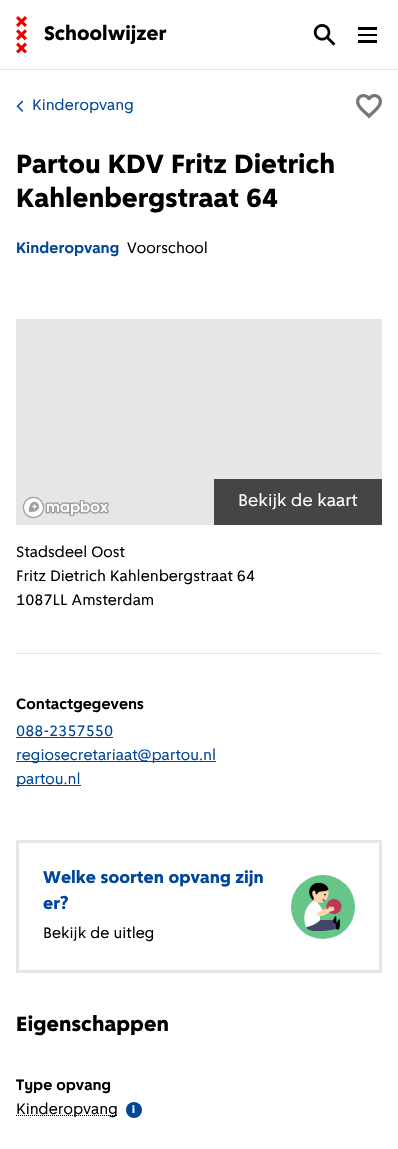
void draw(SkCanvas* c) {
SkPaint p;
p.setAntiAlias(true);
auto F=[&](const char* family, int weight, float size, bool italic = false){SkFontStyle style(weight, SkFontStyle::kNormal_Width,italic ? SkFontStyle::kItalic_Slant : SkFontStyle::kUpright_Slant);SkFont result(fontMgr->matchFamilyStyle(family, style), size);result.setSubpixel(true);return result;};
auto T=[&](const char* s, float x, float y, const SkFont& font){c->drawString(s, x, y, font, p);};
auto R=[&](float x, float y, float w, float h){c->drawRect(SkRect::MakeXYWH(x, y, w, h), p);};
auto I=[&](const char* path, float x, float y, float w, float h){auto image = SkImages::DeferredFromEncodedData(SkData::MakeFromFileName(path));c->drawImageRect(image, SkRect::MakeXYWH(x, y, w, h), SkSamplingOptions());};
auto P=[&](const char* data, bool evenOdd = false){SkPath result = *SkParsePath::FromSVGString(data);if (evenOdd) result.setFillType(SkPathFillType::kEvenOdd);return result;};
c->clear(0xffffffff);
p.setColor(0xffe6e6e6);
R(0,69,398,1);
I("1.png",16,16,11,37);
auto f1 = F("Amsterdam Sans",800,21);
p.setColor(0xff000000);
T("Schoolwijzer",44,40,f1);
I("2.png",313,24,23,22);
R(358,27,19,3);
R(358,34,19,2);
R(358,40,19,3);
I("3.png",16,100,8,12);
auto f2 = F("Amsterdam Sans",400,16);
p.setColor(0xff004699);
T("Kinderopvang",32,110,f2);
I("4.png",356,94,26,25);
auto f3 = F("Amsterdam Sans",800,28);
p.setColor(0xff000000);
T("Partou KDV Fritz Dietrich",16,173,f3);
T("Kahlenbergstraat 64",16,207,f3);
auto f4 = F("Amsterdam Sans",700,16);
p.setColor(0xff004699);
T("Kinderopvang",16,253,f4);
p.setColor(0xff000000);
T("Voorschool",127,253,f2);
p.setColor(0xffe6e6e6);
R(16,653,366,1);
R(16,319,366,206);
I("5.png",22,496,87,23);
p.setColor(0xff454545);
R(214,479,168,46);
auto f5 = F("Amsterdam Sans",400,18);
p.setColor(0xffffffff);
T("Bekijk de kaart",238,506,f5);
p.setColor(0xff000000);
T("Stadsdeel Oost",16,557,f2);
T("Fritz Dietrich Kahlenbergstraat 64",16,581,f2);
T("1087LL Amsterdam",16,605,f2);
T("Contactgegevens",16,709,f4);
p.setColor(0xff004699);
T("088-2357550",16,736,f2);
R(16,737,97,1);
R(16,761,200,1);
T("regiosecretariaat@partou.nl",16,760,f2);
R(16,785,65,1);
T("partou.nl",16,784,f2);
p.setStroke(true);
p.setStrokeWidth(3);
p.setColor(0xffe6e6e6);
c->drawRect(SkRect::MakeXYWH(17.5,841.5,363,130),p);
auto f6 = F("Amsterdam Sans",800,18);
p.setStroke(false);
p.setColor(0xff004699);
T("Welke soorten opvang zijn",43,883,f6);
T("er?",43,909,f6);
p.setColor(0xff000000);
T("Bekijk de uitleg",43,938,f2);
p.setColor(0xff66c68a);
c->drawCircle(323,907,32,p);
I("6.png",304,882,38,49);
auto f7 = F("Amsterdam Sans",800,22);
p.setColor(0xff000000);
T("Eigenschappen",16,1031,f7);
T("Type opvang",16,1090,f4);
p.setStroke(true);
p.setStrokeWidth(1);
p.setPathEffect(SkDashPathEffect::Make({{1,1}}, 0));
c->drawPath(P("M16 1115.5h102"),p);
p.setPathEffect(nullptr);
p.setStroke(false);
T("Kinderopvang",16,1114,f2);
p.setColor(0xff004699);
c->drawCircle(134,1110,8,p);
auto f8 = F("Amsterdam Sans",800,11);
p.setColor(0xffffffff);
T("i",132,1113,f8);
}
